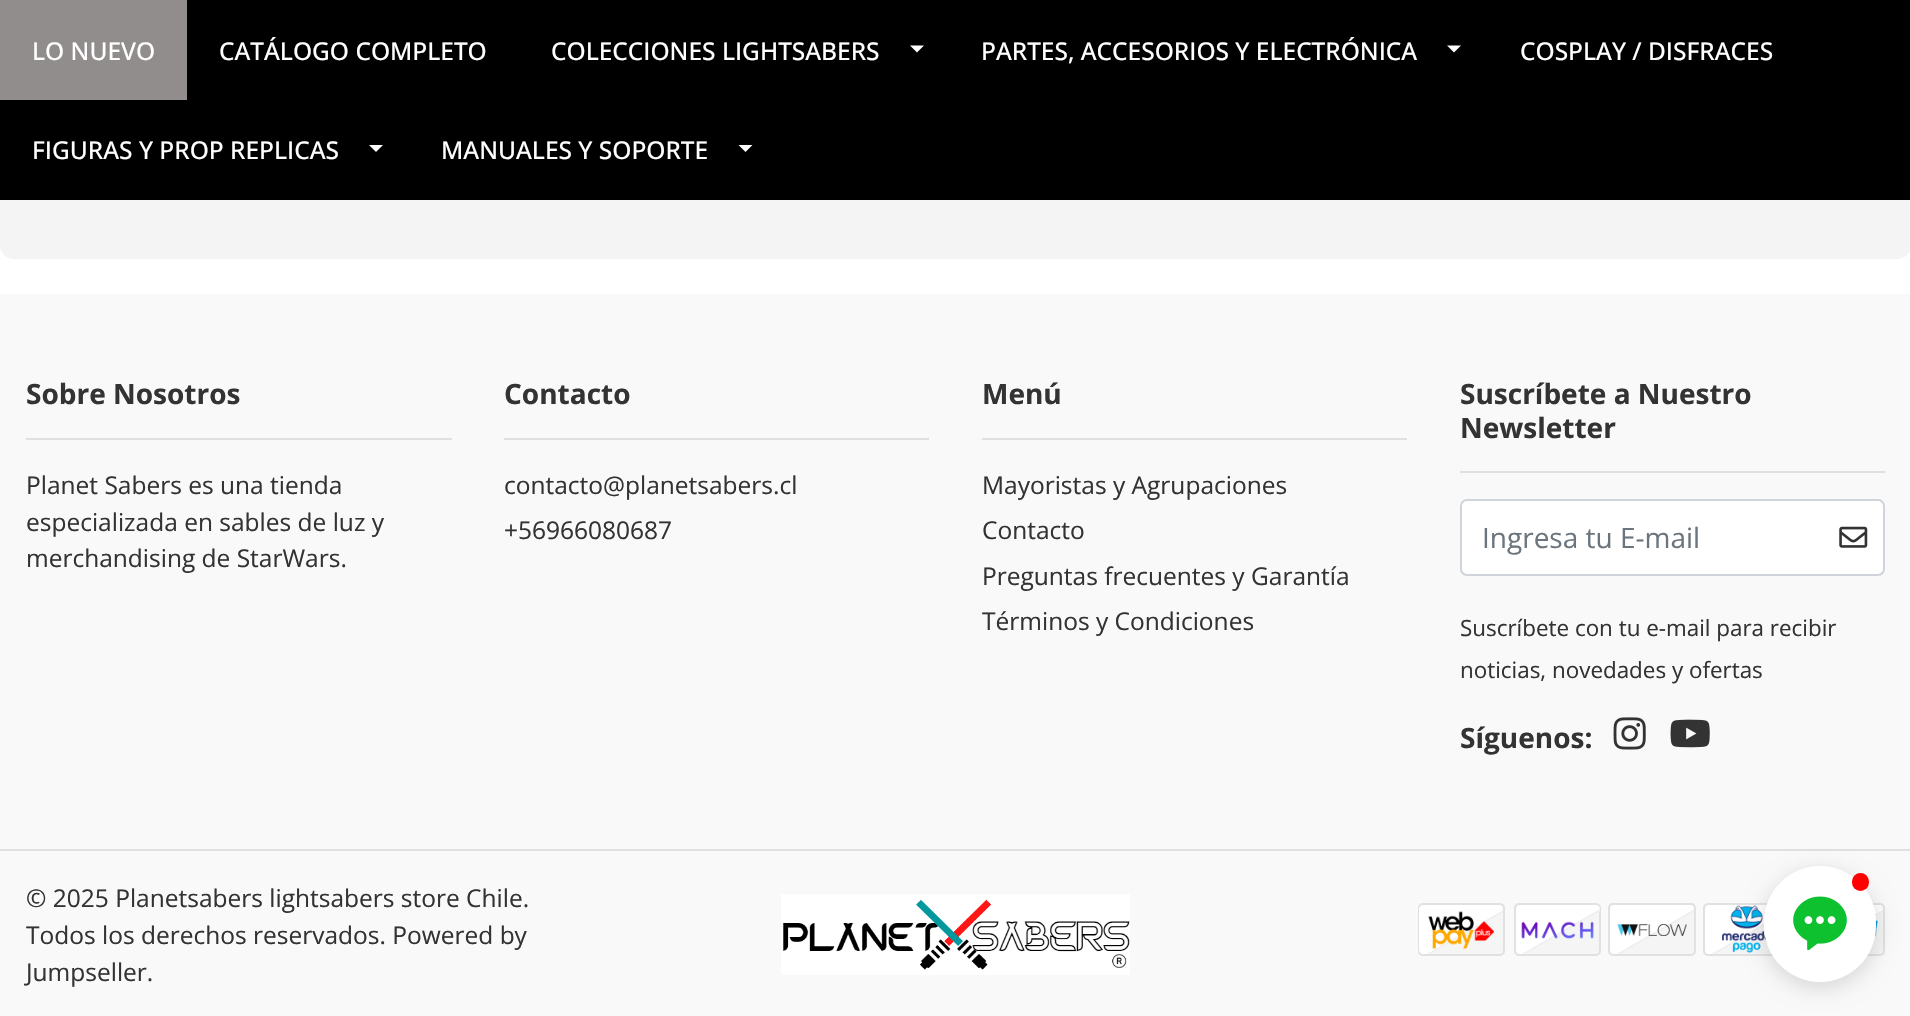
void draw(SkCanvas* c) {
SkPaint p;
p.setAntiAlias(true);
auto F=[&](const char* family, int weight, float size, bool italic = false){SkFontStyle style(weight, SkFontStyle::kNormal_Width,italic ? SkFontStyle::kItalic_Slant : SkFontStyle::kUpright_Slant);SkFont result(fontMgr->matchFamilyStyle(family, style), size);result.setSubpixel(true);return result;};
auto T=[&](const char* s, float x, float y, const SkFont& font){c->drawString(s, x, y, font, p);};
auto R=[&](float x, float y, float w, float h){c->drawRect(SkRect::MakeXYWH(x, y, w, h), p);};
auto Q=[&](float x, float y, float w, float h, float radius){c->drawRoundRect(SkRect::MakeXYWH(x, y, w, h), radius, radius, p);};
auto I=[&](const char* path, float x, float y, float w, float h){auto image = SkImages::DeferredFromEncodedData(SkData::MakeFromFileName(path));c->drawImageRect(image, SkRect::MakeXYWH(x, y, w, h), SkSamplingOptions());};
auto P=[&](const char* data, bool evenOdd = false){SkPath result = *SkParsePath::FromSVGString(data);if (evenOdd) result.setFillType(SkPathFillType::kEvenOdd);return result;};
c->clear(0xffffffff);
p.setColor(0xfff4f4f4);
Q(0,130,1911,129,14);
p.setColor(0xff000000);
R(0,0,1910,200);
p.setColor(0xff918d8d);
R(0,0,187,100);
auto f1 = F("Open Sans",500,24.5);
p.setColor(0xffffffff);
T("LO NUEVO",32,60,f1);
T("CATÁLOGO COMPLETO",219,60,f1);
T("COLECCIONES LIGHTSABERS",551,60,f1);
c->drawPath(P("M910 45.5h14l-7 7z"),p);
T("PARTES, ACCESORIOS Y ELECTRÓNICA",981,60,f1);
c->drawPath(P("M1447 45.5h14l-7 7z"),p);
T("COSPLAY / DISFRACES",1520,60,f1);
T("FIGURAS Y PROP REPLICAS",32,159,f1);
c->drawPath(P("M369 145h14l-7 7z"),p);
T("MANUALES Y SOPORTE",441,159,f1);
c->drawPath(P("M738.5 145h14l-7 7z"),p);
p.setColor(0xfff9f9f9);
R(0,294,1910,722);
p.setColor(0xffe0e0e0);
R(26,438,426,2);
auto f2 = F("Open Sans",700,28);
p.setColor(0xff333333);
T("Sobre Nosotros",26,404,f2);
auto f3 = F("Open Sans",400,24.5);
T("Planet Sabers es una tienda",26,494,f3);
T("especializada en sables de luz y",26,531,f3);
T("merchandising de StarWars.",26,567,f3);
p.setColor(0xffe0e0e0);
R(504,438,425,2);
p.setColor(0xff333333);
T("Contacto",504,404,f2);
T("contacto@planetsabers.cl",504,494,f3);
T("+56966080687",504,539,f3);
p.setColor(0xffe0e0e0);
R(982,438,425,2);
p.setColor(0xff333333);
T("Menú",982,404,f2);
T("Mayoristas y Agrupaciones",982,494,f3);
T("Contacto",982,539,f3);
T("Preguntas frecuentes y Garantía",982,585,f3);
T("Términos y Condiciones",982,630,f3);
p.setColor(0xffe0e0e0);
R(1460,471,425,2);
p.setColor(0xff333333);
T("Suscríbete a Nuestro",1460,404,f2);
T("Newsletter",1460,438,f2);
p.setColor(0xffffffff);
c->drawRoundRect(SkRect::MakeXYWH(1461,500,423,75),6,6,p);
p.setStroke(true);
p.setStrokeWidth(2);
p.setColor(0xffced4da);
c->drawRoundRect(SkRect::MakeXYWH(1461,500,423,75),6,6,p);
auto f4 = F("Open Sans",400,28);
p.setStroke(false);
p.setColor(0xff6c757d);
T("Ingresa tu E-mail",1482,548,f4);
I("1.png",1839,526,29,22);
auto f5 = F("Open Sans",400,22.4);
p.setColor(0xff333333);
T("Suscríbete con tu e-mail para recibir",1460,636,f5);
T("noticias, novedades y ofertas",1460,678,f5);
T("Síguenos:",1460,748,f2);
I("2.png",1613,717,33,33);
I("3.png",1670,719,40,29);
p.setColor(0xffe0e0e0);
R(0,849,1910,2);
p.setColor(0xff333333);
T("© 2025 Planetsabers lightsabers store Chile.",26,907,f3);
T("Todos los derechos reservados. Powered by",26,944,f3);
T("Jumpseller.",26,981,f3);
I("4.png",781,894,349,81);
p.setColor(0xfff5f5f5);
c->drawRoundRect(SkRect::MakeXYWH(1419,904,85,51),4,4,p);
p.setStroke(true);
p.setColor(0xffe1e1e1);
c->drawRoundRect(SkRect::MakeXYWH(1419,904,85,51),4,4,p);
p.setStroke(false);
p.setColor(0xffffffff);
c->drawPath(P("M1423 905h76c2 0 4 2 4 4v3l-72 42h-8c-2 0-4-2-4-4v-41c0-2 2-4 4-4z"),p);
c->save();
c->clipPath(P("M1423 905h76c2 0 4 2 4 4v41c0 2-2 4-4 4h-76c-2 0-4-2-4-4v-41c0-2 2-4 4-4z"),true);
p.setStroke(true);
p.setStrokeWidth(1.7);
p.setColor(0xffeeeeee);
c->drawPath(P("M1451.5 741l86.5 150l-150 86.5l-86.5-150z"),p);
c->restore();
I("5.png",1428,911,66,38);
p.setStroke(false);
p.setColor(0xfff5f5f5);
c->drawRoundRect(SkRect::MakeXYWH(1515,904,85,51),4,4,p);
p.setStroke(true);
p.setStrokeWidth(2);
p.setColor(0xffe1e1e1);
c->drawRoundRect(SkRect::MakeXYWH(1515,904,85,51),4,4,p);
p.setStroke(false);
p.setColor(0xffffffff);
c->drawPath(P("M1520 905h76c2 0 4 2 4 4v2l-74 43h-6c-2 0-4-2-4-4v-41c0-2 2-4 4-4z"),p);
c->save();
c->clipPath(P("M1520 905h76c2 0 4 2 4 4v41c0 2-2 4-4 4h-76c-2 0-4-2-4-4v-41c0-2 2-4 4-4z"),true);
p.setStroke(true);
p.setStrokeWidth(1.7);
p.setColor(0xffeeeeee);
c->drawPath(P("M1546.5 741l86.5 150l-150 86.5l-86.5-150z"),p);
c->restore();
I("6.png",1521,921,73,18);
p.setStroke(false);
p.setColor(0xfff5f5f5);
c->drawRoundRect(SkRect::MakeXYWH(1609,904,86,51),4,4,p);
p.setStroke(true);
p.setStrokeWidth(2);
p.setColor(0xffe1e1e1);
c->drawRoundRect(SkRect::MakeXYWH(1609,904,86,51),4,4,p);
p.setStroke(false);
p.setColor(0xffffffff);
c->drawPath(P("M1614 905h76c2 0 4 2 4 4v2l-74 43h-6c-2 0-4-2-4-4v-41c0-2 2-4 4-4z"),p);
c->save();
c->clipPath(P("M1614 905h76c2 0 4 2 4 4v41c0 2-2 4-4 4h-76c-2 0-4-2-4-4v-41c0-2 2-4 4-4z"),true);
p.setStroke(true);
p.setStrokeWidth(1.7);
p.setColor(0xffeeeeee);
c->drawPath(P("M1641 741l87 150l-150.5 86.5l-86.5-150z"),p);
c->restore();
I("7.png",1617,924,70,12);
p.setStroke(false);
p.setColor(0xfff5f5f5);
c->drawRoundRect(SkRect::MakeXYWH(1704,904,85,51),4,4,p);
p.setStroke(true);
p.setStrokeWidth(2);
p.setColor(0xffe1e1e1);
c->drawRoundRect(SkRect::MakeXYWH(1704,904,85,51),4,4,p);
p.setStroke(false);
p.setColor(0xffffffff);
c->drawPath(P("M1709 905h76c2 0 4 2 4 4v2l-74 43h-6c-2 0-4-2-4-4v-41c0-2 2-4 4-4z"),p);
c->save();
c->clipPath(P("M1709 905h76c2 0 4 2 4 4v41c0 2-2 4-4 4h-76c-2 0-4-2-4-4v-41c0-2 2-4 4-4z"),true);
p.setStroke(true);
p.setStrokeWidth(1.7);
p.setColor(0xffeeeeee);
c->drawPath(P("M1736 741l86.5 150l-150 86.5l-86.5-150z"),p);
c->restore();
I("8.png",1722,905,45,48);
p.setStroke(false);
p.setColor(0xfff5f5f5);
c->drawRoundRect(SkRect::MakeXYWH(1798,904,86,51),4,4,p);
p.setStroke(true);
p.setStrokeWidth(2);
p.setColor(0xffe1e1e1);
c->drawRoundRect(SkRect::MakeXYWH(1798,904,86,51),4,4,p);
p.setStroke(false);
p.setColor(0xffffffff);
c->drawPath(P("M1803 905h76c2 0 4 2 4 4v3l-73 42h-7c-2 0-4-2-4-4v-41c0-2 2-4 4-4z"),p);
c->save();
c->clipPath(P("M1803 905h76c2 0 4 2 4 4v41c0 2-2 4-4 4h-76c-2 0-4-2-4-4v-41c0-2 2-4 4-4z"),true);
p.setStroke(true);
p.setStrokeWidth(1.7);
p.setColor(0xffeeeeee);
c->drawPath(P("M1830.5 741l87 150l-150 86.5l-87-150z"),p);
c->restore();
I("9.png",1874,920,4,17);
p.setStroke(false);
p.setColor(0x26000000);
p.setMaskFilter(SkMaskFilter::MakeBlur(kNormal_SkBlurStyle, 10.5));
c->drawRoundRect(SkRect::MakeXYWH(1764,872,112,115),56,56,p);
p.setMaskFilter(nullptr);
p.setColor(0xffffffff);
Q(1764,866,112,116,56);
p.setColor(0xffff0000);
Q(1852,873,17,18,8.5);
I("10.png",1793,896,54,54);
}
